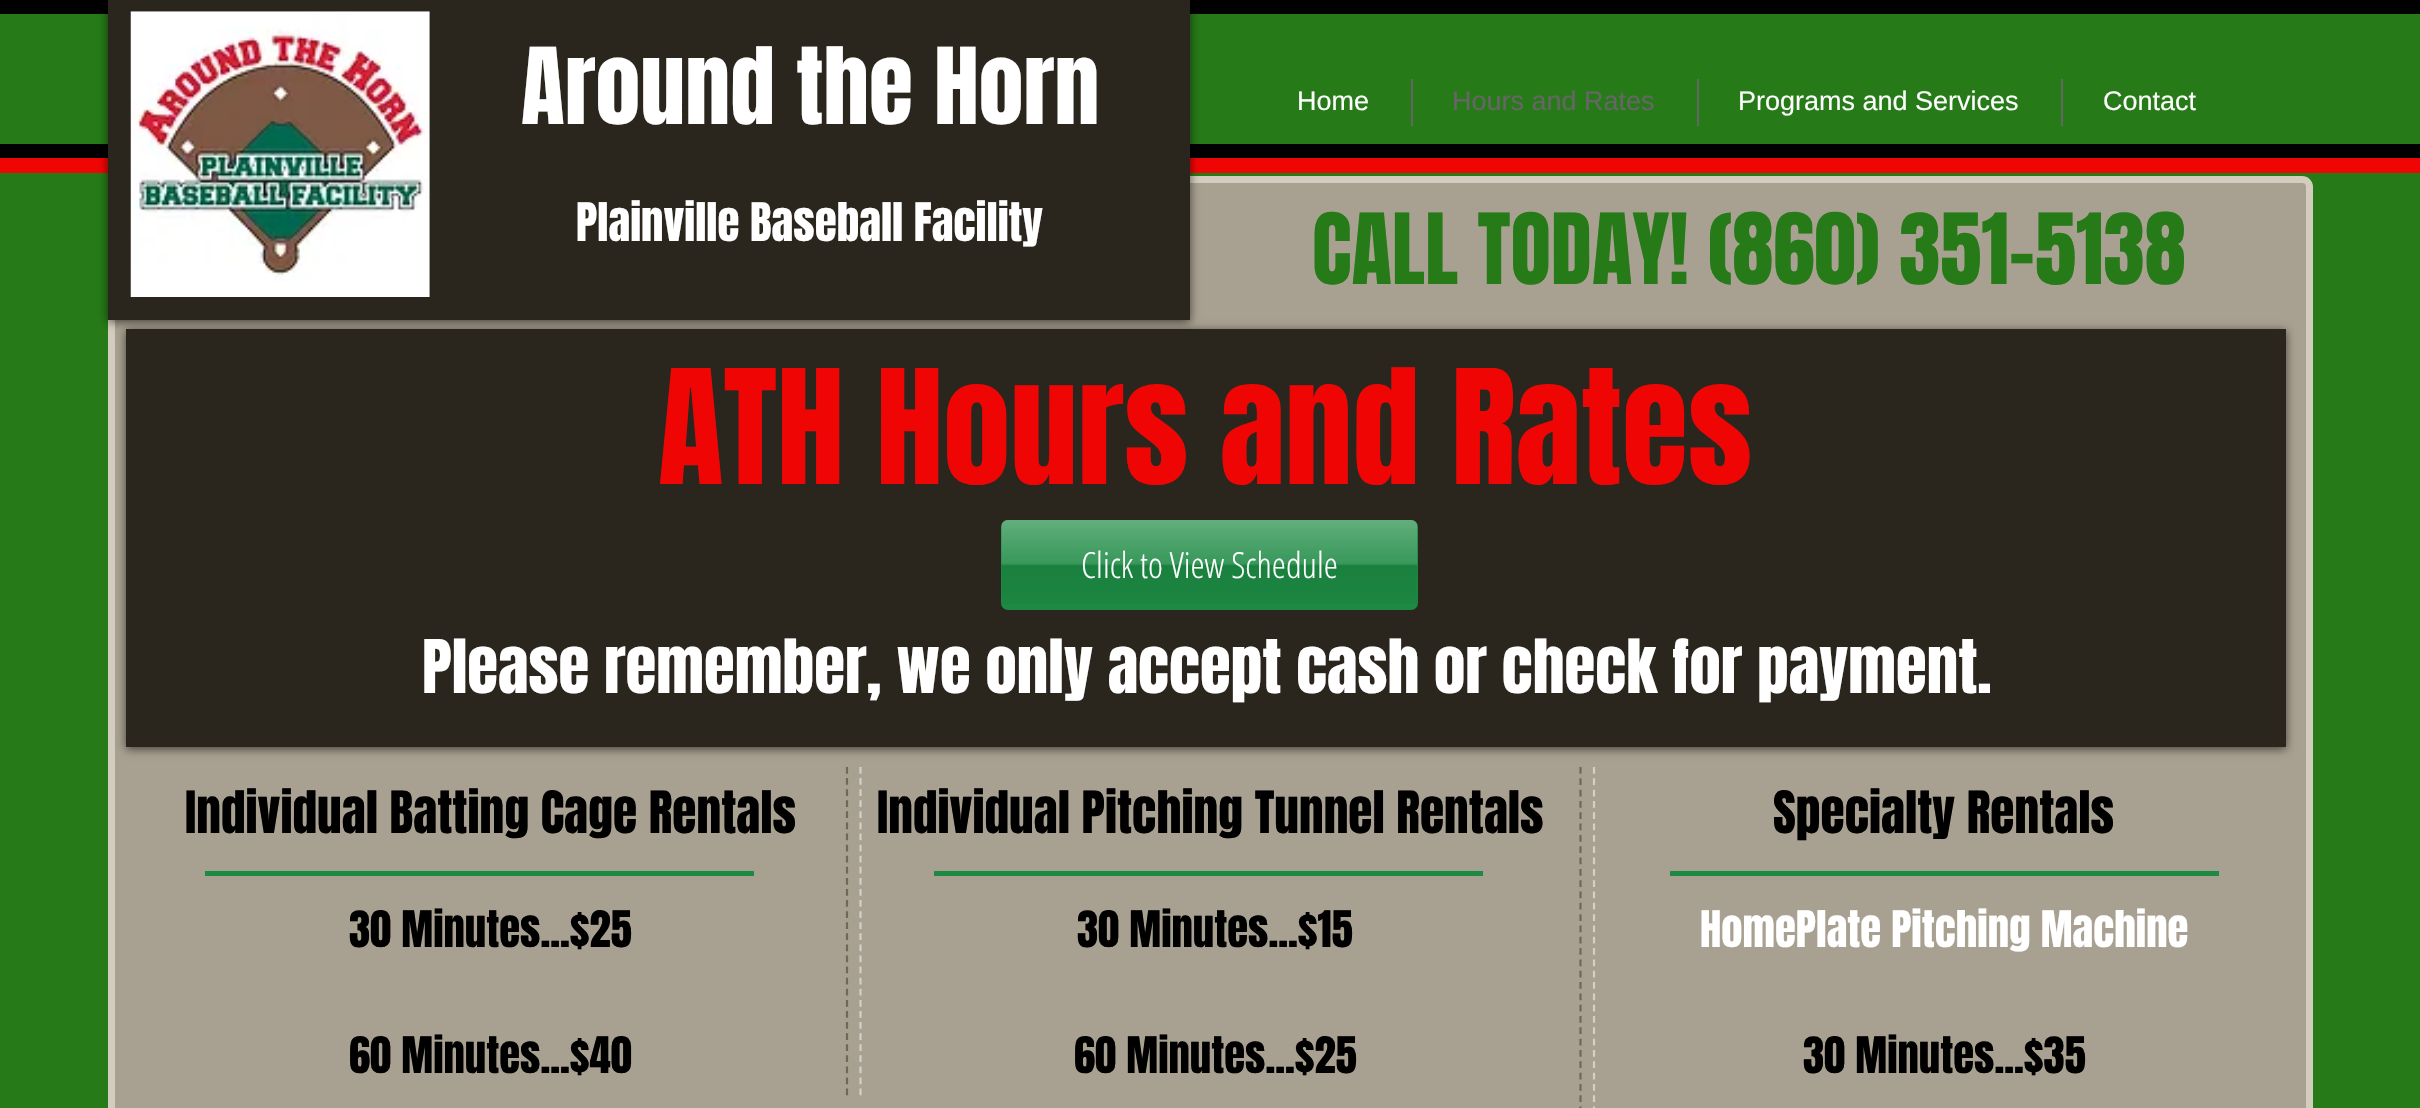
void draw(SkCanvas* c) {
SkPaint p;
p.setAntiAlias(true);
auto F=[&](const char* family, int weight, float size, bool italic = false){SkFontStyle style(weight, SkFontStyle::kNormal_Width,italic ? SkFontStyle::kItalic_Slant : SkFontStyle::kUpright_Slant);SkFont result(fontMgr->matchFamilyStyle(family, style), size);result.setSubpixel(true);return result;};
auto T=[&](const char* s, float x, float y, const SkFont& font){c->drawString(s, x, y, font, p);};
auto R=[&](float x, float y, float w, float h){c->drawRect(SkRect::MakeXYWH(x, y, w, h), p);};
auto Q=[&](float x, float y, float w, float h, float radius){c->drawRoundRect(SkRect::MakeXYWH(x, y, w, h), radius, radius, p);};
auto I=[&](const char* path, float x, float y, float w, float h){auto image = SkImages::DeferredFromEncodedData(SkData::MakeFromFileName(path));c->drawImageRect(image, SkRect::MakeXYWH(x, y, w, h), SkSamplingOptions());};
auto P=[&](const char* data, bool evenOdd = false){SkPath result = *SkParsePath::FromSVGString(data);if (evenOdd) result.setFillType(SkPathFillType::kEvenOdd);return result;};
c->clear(0xff267a17);
p.setColor(0xff000000);
R(0,0,2420,14);
R(0,144,2420,14);
p.setColor(0xfff00505);
R(0,158,2420,15);
p.setColor(0xffa8a090);
c->drawRoundRect(SkRect::MakeXYWH(111.5,179.5,2198,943),7.5,7.5,p);
p.setStroke(true);
p.setStrokeWidth(7);
p.setColor(0xffd4cdbf);
c->drawRoundRect(SkRect::MakeXYWH(111.5,179.5,2198,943),7.5,7.5,p);
p.setStroke(false);
p.setColor(0x99000000);
p.setMaskFilter(SkMaskFilter::MakeBlur(kNormal_SkBlurStyle, 4.5));
c->drawRect(SkRect::MakeXYWH(126,331,2160,418),p);
p.setMaskFilter(nullptr);
p.setColor(0xff2a261e);
R(126,329,2160,418);
p.setColor(0x99000000);
p.setMaskFilter(SkMaskFilter::MakeBlur(kNormal_SkBlurStyle, 4.5));
c->drawRect(SkRect::MakeXYWH(108,2,1082,320),p);
p.setMaskFilter(nullptr);
p.setColor(0xff2a261e);
R(108,0,1082,320);
I("1.png",130,11,300,286);
auto f1 = F("Anton",400,90);
p.setColor(0xffffffff);
T("Around the Horn",521,124,f1);
auto f2 = F("Anton",400,45);
T("Plainville Baseball Facility",576,241,f2);
auto f3 = F("Liberation Sans",400,27);
T("Home",1297,110,f3);
p.setColor(0xff666666);
R(1411,79,2,47);
T("Hours and Rates",1452,110,f3);
R(1697,79,2,47);
p.setColor(0xffffffff);
T("Programs and Services",1738,110,f3);
p.setColor(0xff666666);
R(2061,79,2,47);
p.setColor(0xffffffff);
T("Contact",2103,110,f3);
auto f4 = F("Anton",400,83.25);
p.setColor(0xff267a17);
T("CALL TODAY! (860) 351-5138",1312,284,f4);
auto f5 = F("Anton",400,135);
p.setColor(0xfff00505);
T("ATH Hours and Rates",658,484,f5);
p.setColor(0xff1c8a43);
Q(1001,520,417,90,7);
I("2.png",1001,520,417,84);
auto f6 = F("Open Sans Condensed",300,36);
p.setColor(0xffffffff);
T("Click to View Schedule",1081,578,f6);
auto f7 = F("Anton",400,63);
T("Please remember, we only accept cash or check for payment.",422,693,f7);
auto f8 = F("Anton",400,49.5);
p.setColor(0xff000000);
T("Individual Batting Cage Rentals",185,833,f8);
p.setStroke(true);
p.setStrokeWidth(2.2);
p.setColor(0xffd4d0c8);
p.setPathEffect(SkDashPathEffect::Make({{6.75f,4.34f}}, 0));
c->drawPath(P("M860.5 767v329"),p);
p.setPathEffect(nullptr);
p.setColor(0xff6d685e);
p.setPathEffect(SkDashPathEffect::Make({{6.75f,4.34f}}, 0));
c->drawPath(P("M847 767v329"),p);
p.setPathEffect(nullptr);
p.setStroke(false);
p.setColor(0xff000000);
T("Individual Pitching Tunnel Rentals",877,833,f8);
p.setStroke(true);
p.setColor(0xffd4d0c8);
p.setPathEffect(SkDashPathEffect::Make({{6.75f,4.57f}}, 0));
c->drawPath(P("M1594 767v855"),p);
p.setPathEffect(nullptr);
p.setColor(0xff6d685e);
p.setPathEffect(SkDashPathEffect::Make({{6.75f,4.57f}}, 0));
c->drawPath(P("M1580.5 767v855"),p);
p.setPathEffect(nullptr);
p.setStroke(false);
p.setColor(0xff000000);
T("Specialty Rentals",1773,833,f8);
p.setColor(0xff1c8a43);
R(205,871,549,5);
R(934,871,549,5);
R(1670,871,549,5);
auto f9 = F("Anton",400,42.75);
p.setColor(0xff000000);
T("30 Minutes...$25",349,947,f9);
T("60 Minutes...$40",349,1073,f9);
T("30 Minutes...$15",1077,947,f9);
T("60 Minutes...$25",1074,1073,f9);
p.setColor(0xffffffff);
T("HomePlate Pitching Machine",1700,947,f9);
p.setColor(0xff000000);
T("30 Minutes...$35",1803,1073,f9);
}
